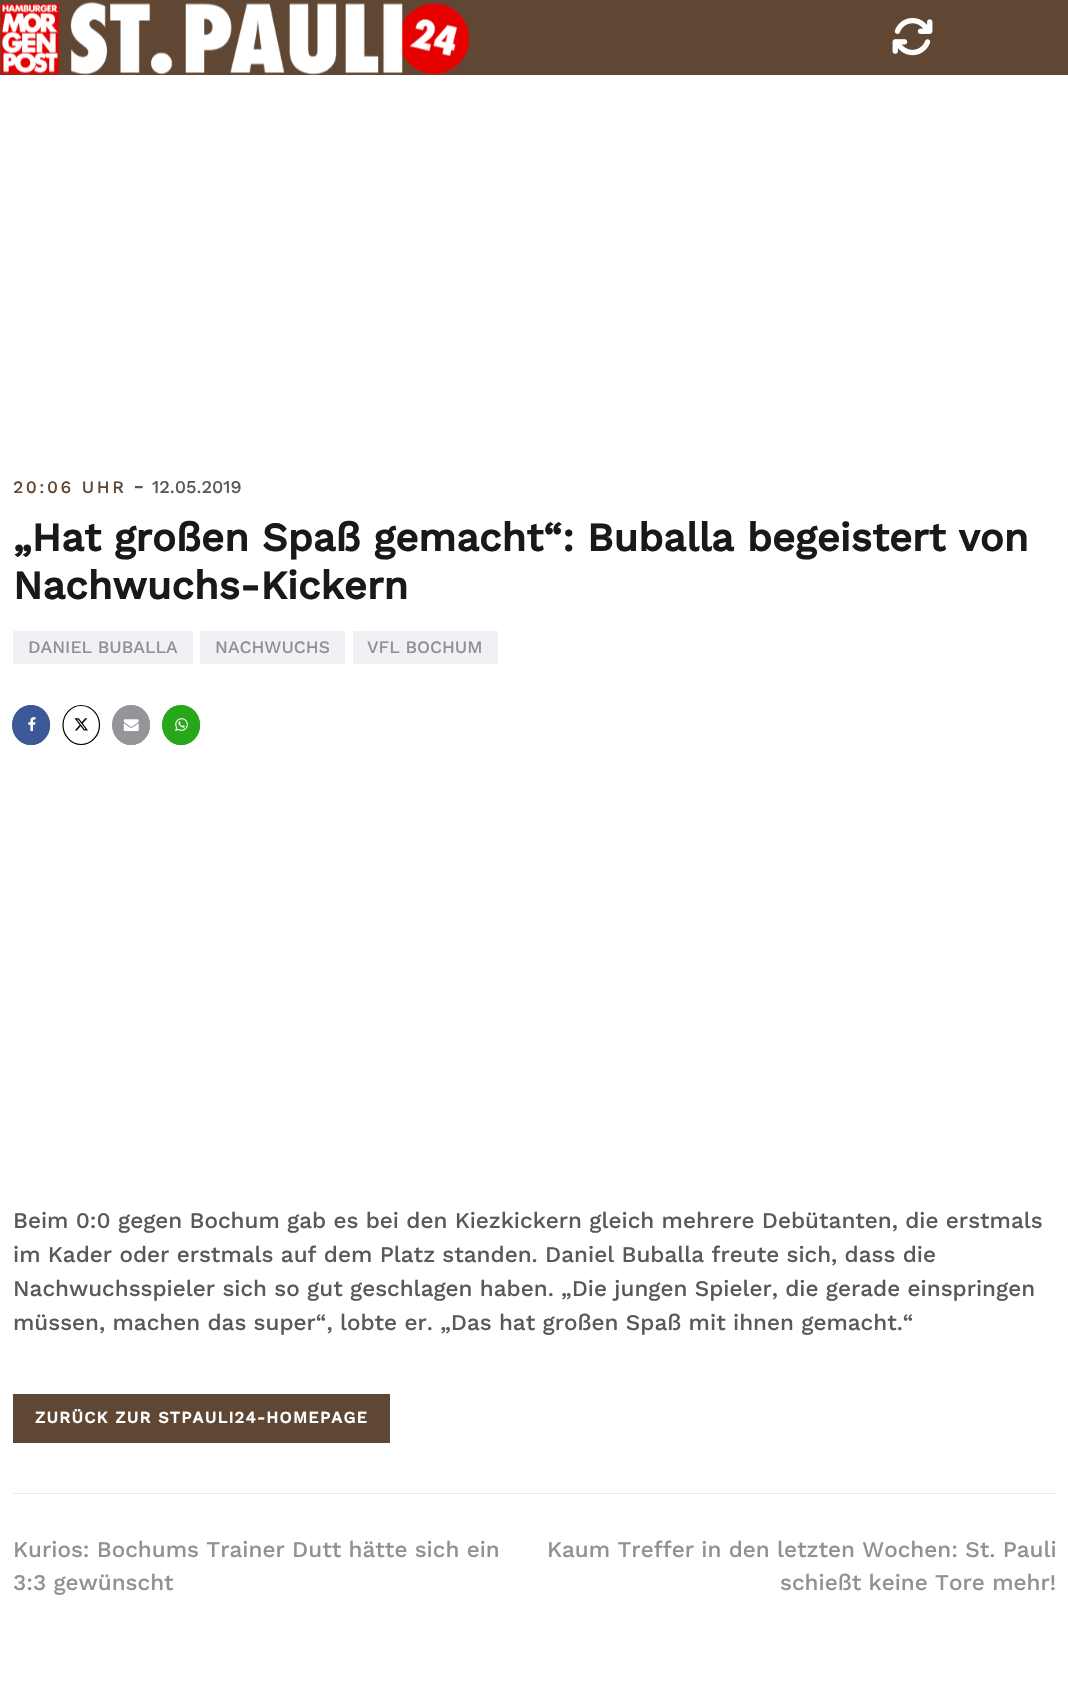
void draw(SkCanvas* c) {
SkPaint p;
p.setAntiAlias(true);
auto F=[&](const char* family, int weight, float size, bool italic = false){SkFontStyle style(weight, SkFontStyle::kNormal_Width,italic ? SkFontStyle::kItalic_Slant : SkFontStyle::kUpright_Slant);SkFont result(fontMgr->matchFamilyStyle(family, style), size);result.setSubpixel(true);return result;};
auto T=[&](const char* s, float x, float y, const SkFont& font){c->drawString(s, x, y, font, p);};
auto L=[&](const char* s, float x, float y, const SkFont& font, const SkPaint& ink, float letter, float word){std::vector<SkGlyphID> glyphs(font.countText(s, strlen(s), SkTextEncoding::kUTF8));std::vector<float> xs(glyphs.size());font.textToGlyphs(s, strlen(s), SkTextEncoding::kUTF8, glyphs);font.getXPos(glyphs, xs, x);float extra = 0;for (size_t i = 0; i < glyphs.size(); i++) {xs[i] += extra;extra += letter + word * (glyphs[i] == font.unicharToGlyph(' '));}c->drawTextBlob(SkTextBlob::MakeFromPosHGlyphs(glyphs, xs, y, font), 0, 0, ink);};
auto R=[&](float x, float y, float w, float h){c->drawRect(SkRect::MakeXYWH(x, y, w, h), p);};
auto I=[&](const char* path, float x, float y, float w, float h){auto image = SkImages::DeferredFromEncodedData(SkData::MakeFromFileName(path));c->drawImageRect(image, SkRect::MakeXYWH(x, y, w, h), SkSamplingOptions());};
auto P=[&](const char* data, bool evenOdd = false){SkPath result = *SkParsePath::FromSVGString(data);if (evenOdd) result.setFillType(SkPathFillType::kEvenOdd);return result;};
c->clear(0xffffffff);
p.setColor(0xff604734);
R(0,0,1068,75);
I("1.png",0,2,470,73);
I("2.png",892,18,41,38);
p.setColor(0xffebebeb);
R(13,1493,1043,1);
auto f1 = F("Work Sans",500,17.5);
p.setColor(0xff604734);
L("20:06 UHR",13,493,f1,p,2.5,0);
auto f2 = F("Work Sans",500,22.5);
p.setColor(0xff595959);
T("-",133,493,f2);
auto f3 = F("Work Sans",500,18);
T("12.05.2019",152,493,f3);
auto f4 = F("Work Sans",700,40);
p.setColor(0xff191919);
T("„Hat großen Spaß gemacht“: Buballa begeistert von",13,551,f4);
T("Nachwuchs-Kickern",13,599,f4);
p.setColor(0xffeff1f4);
R(13,631,180,33);
p.setColor(0xff919191);
T("DANIEL BUBALLA",28,653,f1);
p.setColor(0xffeff1f4);
R(200,631,145,33);
p.setColor(0xff919191);
T("NACHWUCHS",215,653,f1);
p.setColor(0xffeff1f4);
R(353,631,145,33);
p.setColor(0xff919191);
T("VFL BOCHUM",367,653,f1);
p.setColor(0xff3b5998);
c->drawOval(SkRect::MakeXYWH(12,705,38,40),p);
p.setStroke(true);
p.setStrokeWidth(1.2);
c->drawPath(P("M31 705.5c10.5 0 18.5 9 18.5 19.5c0 10.5-8 19.5-18.5 19.5c-10 0-18-9-18-19.5c0-10.5 8-19.5 18-19.5z"),p);
I("3.png",28,717,8,15);
p.setColor(0xff000000);
c->drawPath(P("M81 705.5c10.5 0 18.5 9 18.5 19.5c0 10.5-8 19.5-18.5 19.5c-10 0-18-9-18-19.5c0-10.5 8-19.5 18-19.5z"),p);
I("4.png",74,718,14,13);
p.setStroke(false);
p.setColor(0xff939598);
c->drawOval(SkRect::MakeXYWH(112,705,38,40),p);
p.setStroke(true);
c->drawPath(P("M131 705.5c10.5 0 18.5 9 18.5 19.5c0 10.5-8 19.5-18.5 19.5c-10 0-18-9-18-19.5c0-10.5 8-19.5 18-19.5z"),p);
I("5.png",123,719,16,13);
p.setStroke(false);
p.setColor(0xff29a71a);
c->drawOval(SkRect::MakeXYWH(162,705,38,40),p);
p.setStroke(true);
c->drawPath(P("M181 705.5c10.5 0 18.5 9 18.5 19.5c0 10.5-8 19.5-18.5 19.5c-10 0-18-9-18-19.5c0-10.5 8-19.5 18-19.5z"),p);
I("6.png",175,718,13,13);
p.setStroke(false);
p.setColor(0xff595959);
T("Beim 0:0 gegen Bochum gab es bei den Kiezkickern gleich mehrere Debütanten, die erstmals",13,1228,f2);
T("im Kader oder erstmals auf dem Platz standen. Daniel Buballa freute sich, dass die",13,1262,f2);
T("Nachwuchsspieler sich so gut geschlagen haben. „Die jungen Spieler, die gerade einspringen",13,1296,f2);
T("müssen, machen das super“, lobte er. „Das hat großen Spaß mit ihnen gemacht.“",13,1330,f2);
p.setColor(0xff604734);
R(13,1394,377,49);
auto f5 = F("Work Sans",700,16.25);
p.setColor(0xffffffff);
L("ZURÜCK ZUR STPAULI24-HOMEPAGE",35,1423,f5,p,1.25,0);
p.setColor(0xff919191);
T("Kurios: Bochums Trainer Dutt hätte sich ein",13,1557,f2);
T("3:3 gewünscht",13,1590,f2);
T("Kaum Treffer in den letzten Wochen: St. Pauli",547,1557,f2);
T("schießt keine Tore mehr!",780,1590,f2);
}
